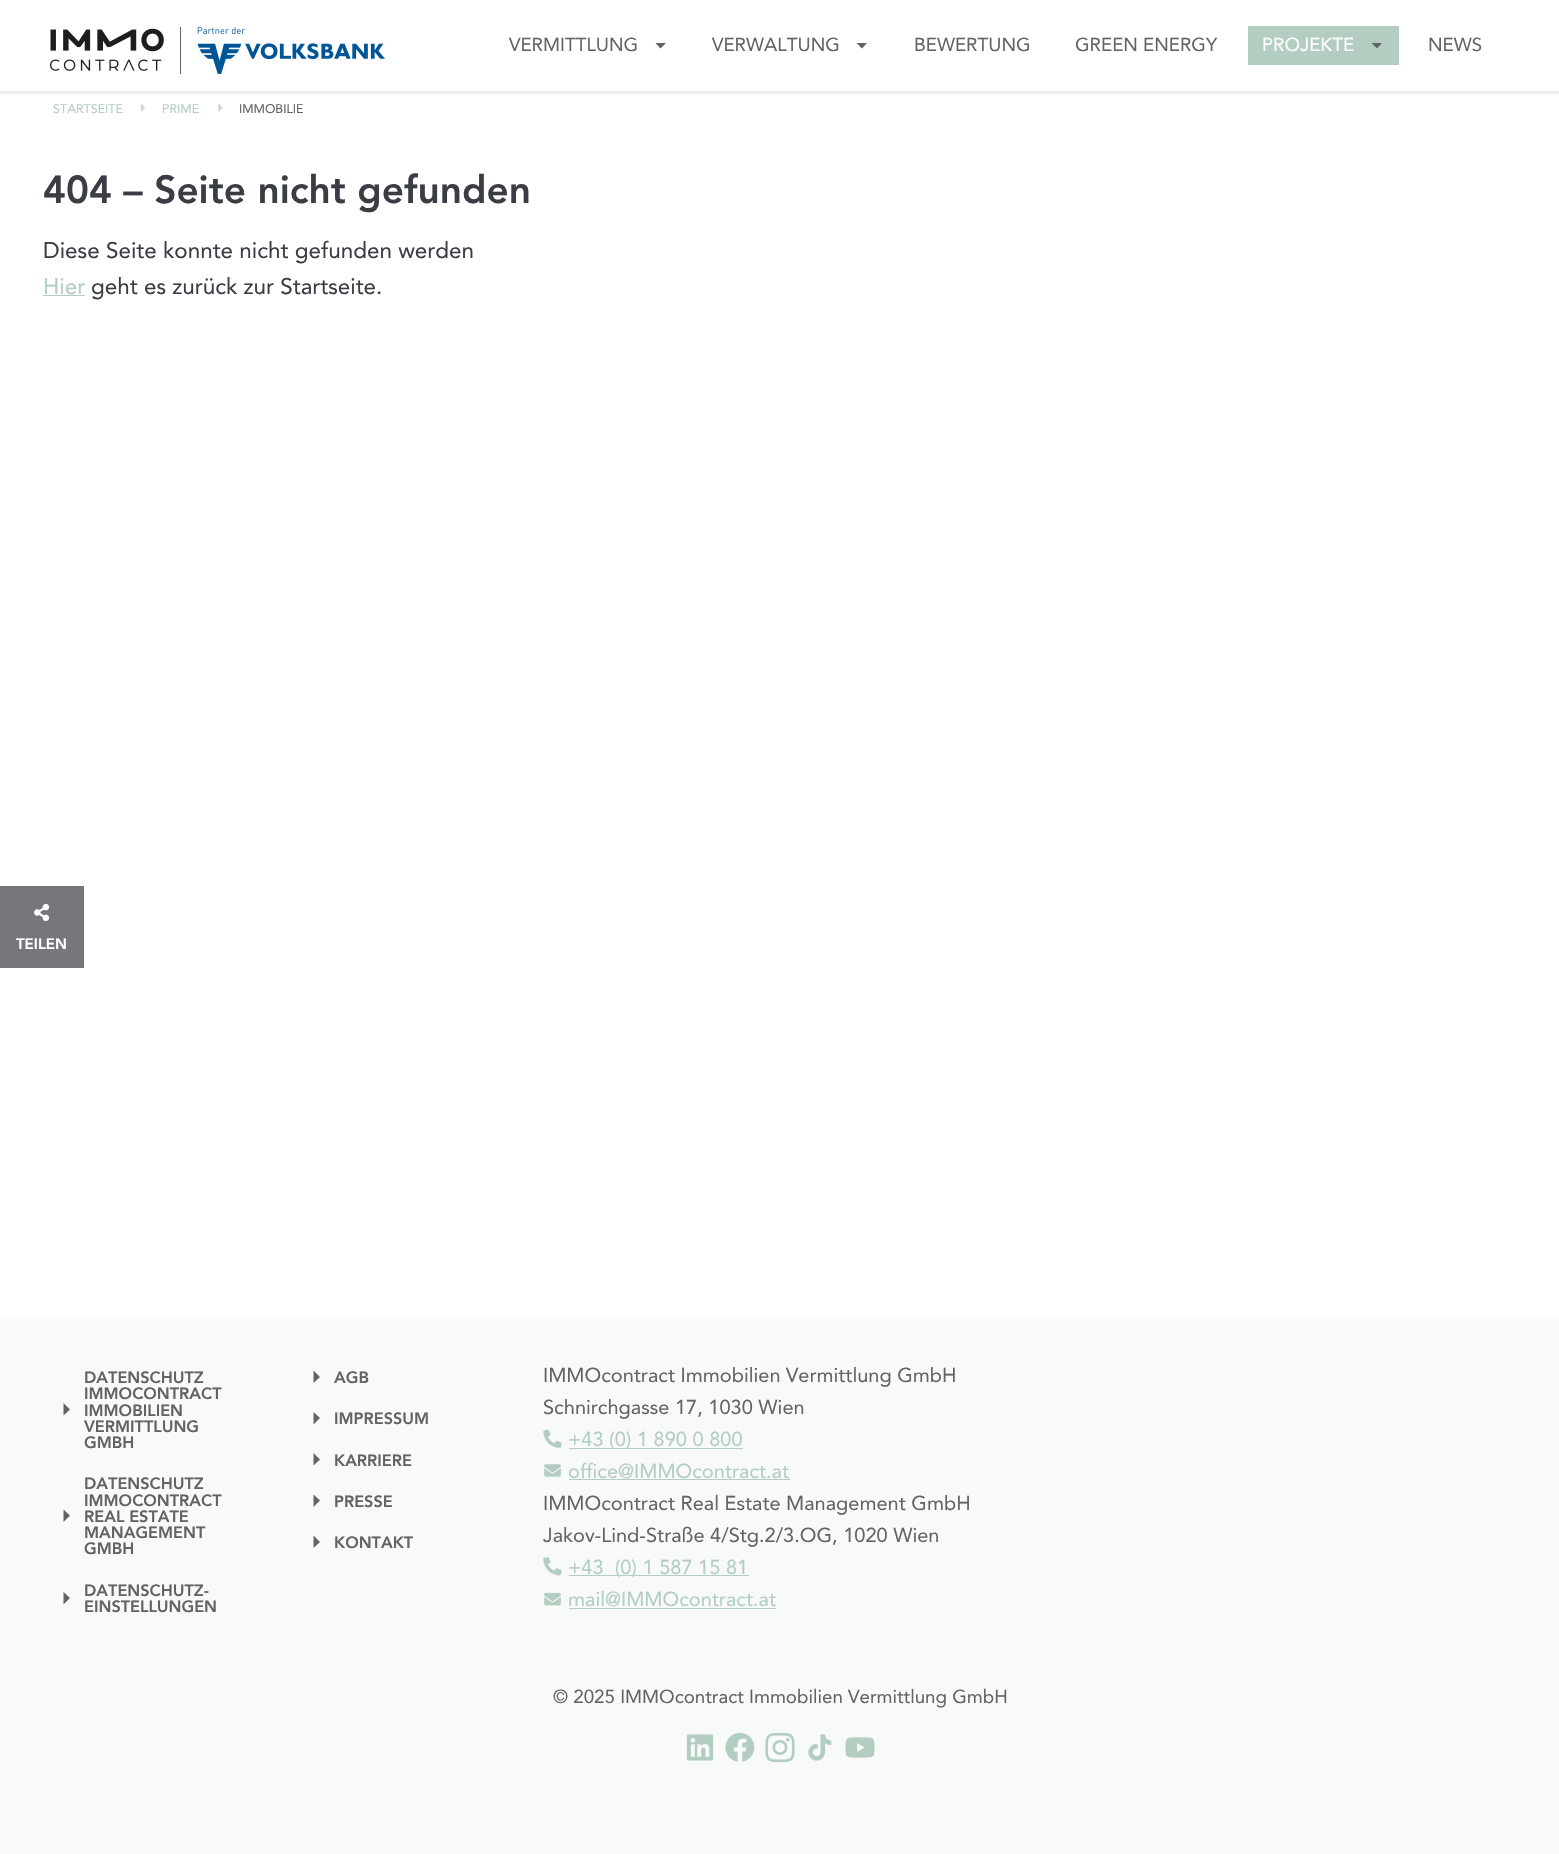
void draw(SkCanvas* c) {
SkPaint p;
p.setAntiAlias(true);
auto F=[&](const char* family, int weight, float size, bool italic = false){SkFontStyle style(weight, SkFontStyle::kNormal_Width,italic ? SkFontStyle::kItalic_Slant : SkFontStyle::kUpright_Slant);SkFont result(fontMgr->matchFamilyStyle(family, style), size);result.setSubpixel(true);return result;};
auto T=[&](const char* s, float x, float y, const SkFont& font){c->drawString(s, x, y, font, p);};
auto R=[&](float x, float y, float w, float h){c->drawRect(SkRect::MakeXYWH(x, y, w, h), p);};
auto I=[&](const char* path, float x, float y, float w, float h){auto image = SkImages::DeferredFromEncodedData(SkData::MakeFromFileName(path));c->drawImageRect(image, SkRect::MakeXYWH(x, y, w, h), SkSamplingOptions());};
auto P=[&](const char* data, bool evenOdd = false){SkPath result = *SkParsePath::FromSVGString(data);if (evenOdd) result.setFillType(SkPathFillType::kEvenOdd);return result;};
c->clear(0xffffffff);
p.setColor(0xff75777c);
R(0,886,84,82);
I("1.png",34,903,16,19);
auto f1 = F("Avenir",900,15);
p.setColor(0xffffffff);
T("TEILEN",16,949,f1);
c->save();
c->clipRect(SkRect::MakeXYWH(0,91,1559,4));
p.setColor(0x1a3a3d44);
p.setMaskFilter(SkMaskFilter::MakeBlur(kNormal_SkBlurStyle, 1));
c->drawRect(SkRect::MakeXYWH(0,3,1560,91),p);
p.setMaskFilter(nullptr);
c->restore();
I("2.png",50,27,335,47);
auto f2 = F("Avenir",400,18.75);
p.setColor(0xff646363);
T("VERMITTLUNG",509,51,f2);
c->drawPath(P("M666 43h-10.5l5 5.5z"),p);
T("VERWALTUNG",712,51,f2);
c->drawPath(P("M867 43h-10.5l5.5 5.5z"),p);
T("BEWERTUNG",914,51,f2);
T("GREEN ENERGY",1075,51,f2);
p.setColor(0xffb3cec0);
R(1248,26,151,39);
p.setColor(0xffffffff);
T("PROJEKTE",1262,51,f2);
p.setColor(0xff646363);
c->drawPath(P("M1382 43h-10.5l5.5 5.5z"),p);
T("NEWS",1428,51,f2);
auto f3 = F("Avenir",400,12.5);
p.setColor(0xffb3cec0);
T("STARTSEITE",53,113,f3);
I("3.png",140,104,5,8);
T("PRIME",162,113,f3);
I("4.png",218,104,5,8);
p.setColor(0xff646363);
T("IMMOBILIE",239,113,f3);
auto f4 = F("Avenir",900,38.75);
p.setColor(0xff3a3d44);
T("404 – Seite nicht gefunden",43,203,f4);
auto f5 = F("Avenir",400,22.5);
T("Diese Seite konnte nicht gefunden werden",43,258,f5);
p.setColor(0xffb3cec0);
T("Hier",43,294,f5);
R(43,295,42,1);
p.setColor(0xff3a3d44);
T("geht es zurück zur Startseite.",91,294,f5);
p.setColor(0xfff8f9f9);
R(0,1319,1559,345);
p.setColor(0xff646363);
c->drawPath(P("M63.5 1403v12.5l6.5-6z"),p);
auto f6 = F("Avenir",900,16.25);
T("DATENSCHUTZ",84,1383,f6);
T("IMMOCONTRACT",84,1399,f6);
T("IMMOBILIEN",84,1416,f6);
T("VERMITTLUNG",84,1432,f6);
T("GMBH",84,1448,f6);
c->drawPath(P("M63.5 1509.5v12.5l6.5-6.5z"),p);
T("DATENSCHUTZ",84,1489,f6);
T("IMMOCONTRACT",84,1506,f6);
T("REAL ESTATE",84,1522,f6);
T("MANAGEMENT",84,1538,f6);
T("GMBH",84,1554,f6);
c->drawPath(P("M63.5 1592v12.5l6.5-6.5z"),p);
T("DATENSCHUTZ-",84,1596,f6);
T("EINSTELLUNGEN",84,1612,f6);
c->drawPath(P("M313.5 1370.5v12.5l6.5-6z"),p);
T("AGB",334,1383,f6);
c->drawPath(P("M313.5 1412v12.5l6.5-6.5z"),p);
T("IMPRESSUM",334,1424,f6);
c->drawPath(P("M313.5 1453v12.5l6.5-6z"),p);
T("KARRIERE",334,1466,f6);
c->drawPath(P("M313.5 1494.5v12.5l6.5-6.5z"),p);
T("PRESSE",334,1507,f6);
c->drawPath(P("M313.5 1535.5v12.5l6.5-6z"),p);
T("KONTAKT",334,1548,f6);
auto f7 = F("Avenir",400,20);
T("IMMOcontract Immobilien Vermittlung GmbH",543,1382,f7);
T("Schnirchgasse 17, 1030 Wien",543,1414,f7);
I("5.png",543,1429,19,19);
p.setColor(0xffb3cec0);
R(569,1448,174,1);
T("+43 (0) 1 890 0 800",568,1446,f7);
I("6.png",544,1464,17,13);
T("office@IMMOcontract.at",568,1478,f7);
R(569,1479,221,1);
p.setColor(0xff646363);
T("IMMOcontract Real Estate Management GmbH",543,1510,f7);
T("Jakov-Lind-Straße 4/Stg.2/3.OG, 1020 Wien",543,1542,f7);
I("7.png",543,1557,19,19);
p.setColor(0xffb3cec0);
R(569,1575,180,1);
T("+43  (0) 1 587 15 81",568,1574,f7);
I("8.png",544,1592,17,14);
T("mail@IMMOcontract.at",568,1606,f7);
R(569,1608,207,1);
p.setColor(0xfff8f9f9);
R(0,1664,1559,190);
p.setColor(0xff646363);
T("© 2025 IMMOcontract Immobilien Vermittlung GmbH",553,1703,f2);
I("9.png",686,1734,28,27);
I("10.png",725,1732,30,30);
I("11.png",765,1732,30,31);
I("12.png",808,1734,24,27);
I("13.png",845,1737,30,21);
}
